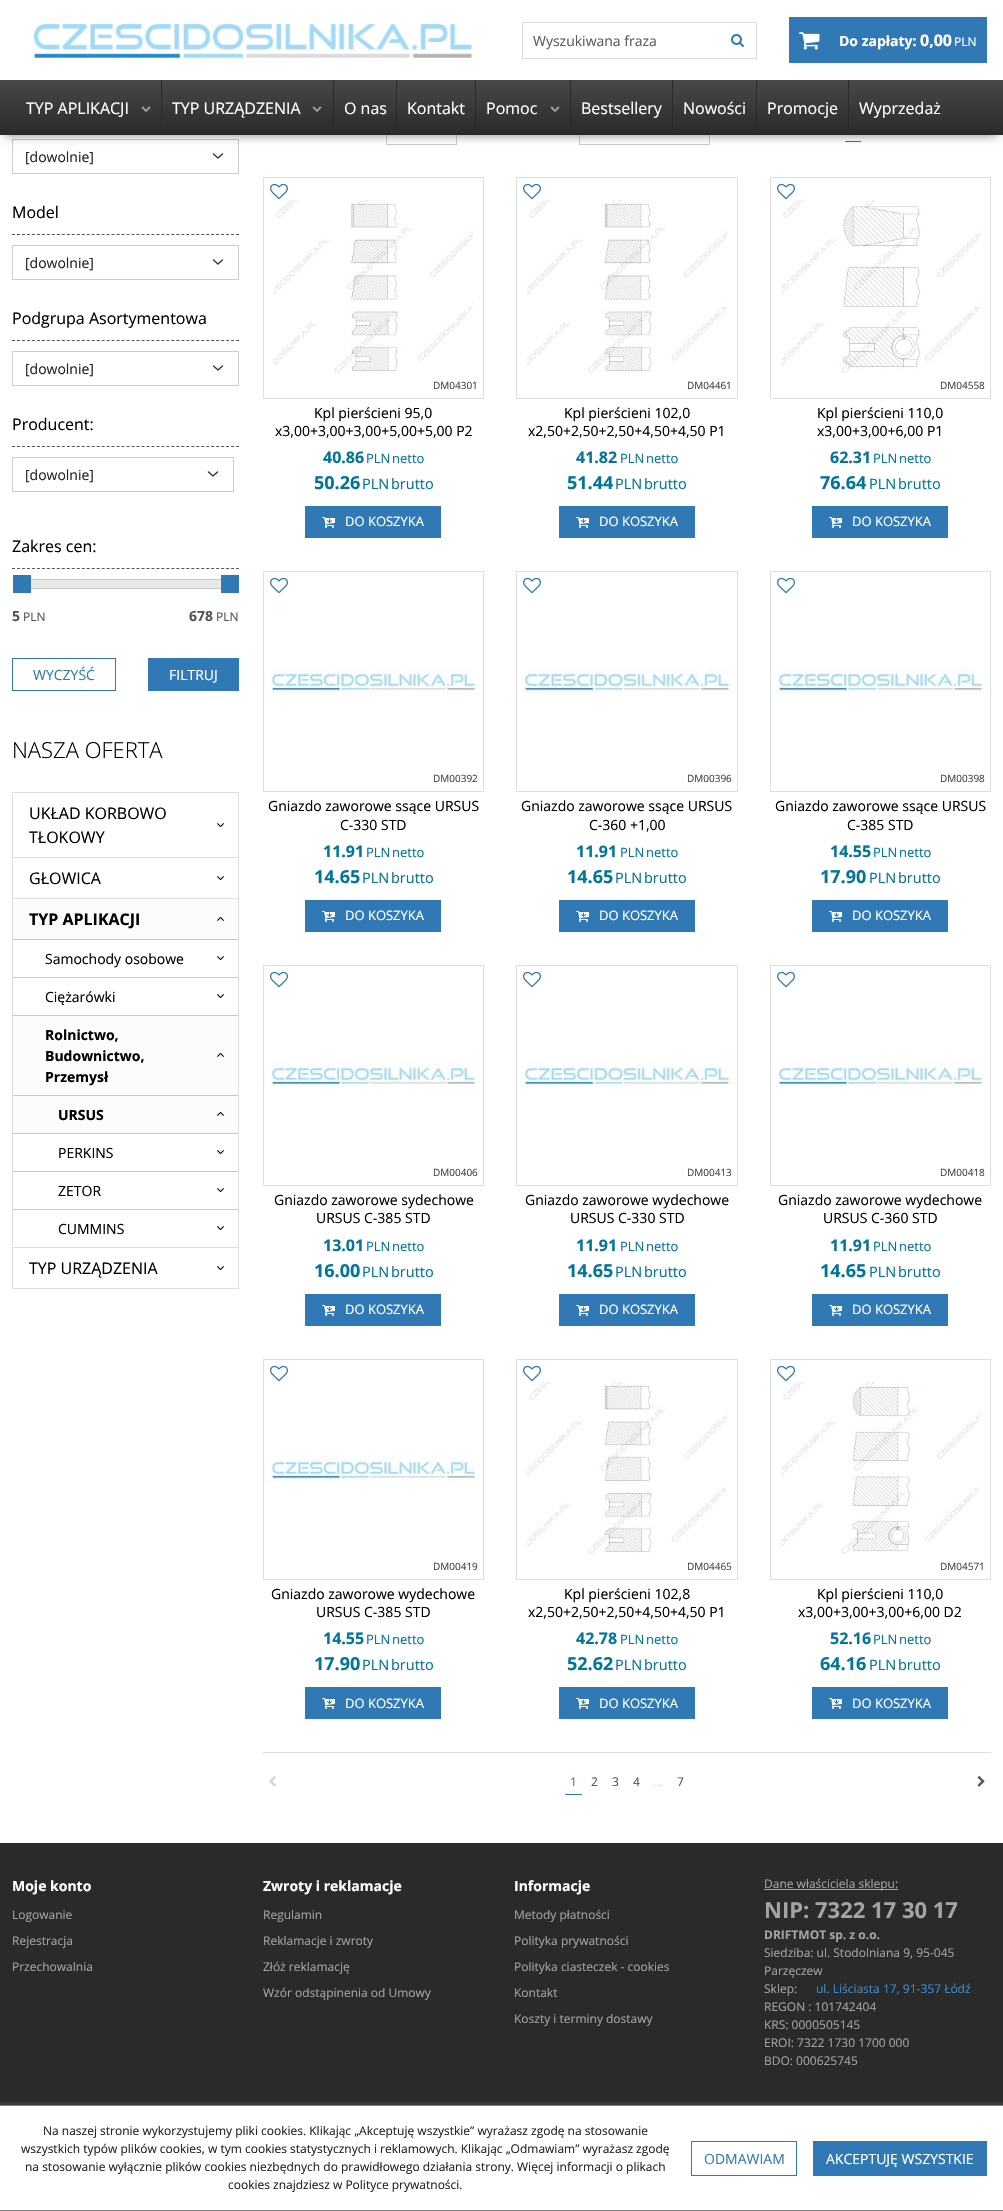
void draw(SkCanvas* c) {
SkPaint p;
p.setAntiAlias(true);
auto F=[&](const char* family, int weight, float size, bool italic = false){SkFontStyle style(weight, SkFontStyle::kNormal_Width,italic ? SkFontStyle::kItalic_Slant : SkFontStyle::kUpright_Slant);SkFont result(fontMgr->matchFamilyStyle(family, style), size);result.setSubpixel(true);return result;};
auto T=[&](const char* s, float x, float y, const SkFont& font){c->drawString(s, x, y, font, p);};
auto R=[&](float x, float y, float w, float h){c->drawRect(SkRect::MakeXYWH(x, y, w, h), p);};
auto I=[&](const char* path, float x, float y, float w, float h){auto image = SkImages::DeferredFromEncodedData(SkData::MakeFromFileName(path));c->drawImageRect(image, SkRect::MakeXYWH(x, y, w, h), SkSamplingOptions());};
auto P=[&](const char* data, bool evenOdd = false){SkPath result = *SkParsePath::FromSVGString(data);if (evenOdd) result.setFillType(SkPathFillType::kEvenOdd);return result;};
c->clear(0xffffffff);
p.setStroke(true);
p.setStrokeWidth(1.5);
p.setStrokeCap(SkPaint::kRound_Cap);
p.setStrokeJoin(SkPaint::kRound_Join);
p.setColor(0xff343a40);
c->drawPath(P("M213.5 154l4.5 4l4.5-4"),p);
p.setStrokeWidth(1);
p.setStrokeCap(SkPaint::kButt_Cap);
p.setStrokeJoin(SkPaint::kMiter_Join);
p.setColor(0xffcccccc);
c->drawRect(SkRect::MakeXYWH(12.5,139.5,226,34),p);
c->drawRect(SkRect::MakeXYWH(386.5,113.5,70,31),p);
c->drawRect(SkRect::MakeXYWH(579.5,113.5,130,31),p);
p.setStroke(false);
p.setColor(0xff3179b4);
R(845,141,16,1);
p.setColor(0x80000000);
p.setMaskFilter(SkMaskFilter::MakeBlur(kNormal_SkBlurStyle, 5));
c->drawRect(SkRect::MakeXYWH(5,10,993,125),p);
p.setMaskFilter(nullptr);
p.setColor(0xffffffff);
R(0,0,1003,80);
I("1.png",33,23,440,35);
p.setStroke(true);
p.setColor(0xffdedede);
c->drawRect(SkRect::MakeXYWH(522.5,22.5,234,36),p);
auto f1 = F("Open Sans",400,14);
p.setStroke(false);
p.setColor(0xff595c5f);
T("Wyszukiwana fraza",533,46,f1);
I("2.png",731,34,13,13);
p.setColor(0xff3179b4);
R(789,17,198,46);
I("3.png",799,32,21,18);
auto f2 = F("Open Sans",700,14);
p.setColor(0xffffffff);
T("Do zapłaty:",839,46,f2);
auto f3 = F("Open Sans",700,16);
T("0,00",920,46,f3);
auto f4 = F("Open Sans",400,12);
T("PLN",954,46,f4);
{
const SkColor colors[] = {0xff484848,0xff2a2a2a};
const float stops[] = {0,1};
const SkPoint ends[] = {{502,80}, {502,135}};
p.setShader(SkGradientShader::MakeLinear(ends, colors, stops, 2, SkTileMode::kClamp));
p.setAlpha(255);
}
R(0,80,1003,55);
p.setShader(nullptr);
p.setColor(0xff2a2a2a);
R(161,80,1,55);
auto f5 = F("Open Sans",400,16);
p.setColor(0xffffffff);
T("TYP APLIKACJI",26,114,f5);
I("4.png",141,106,10,6);
p.setColor(0xff2a2a2a);
R(333,80,1,55);
p.setColor(0xffffffff);
T("TYP URZĄDZENIA",172,114,f5);
I("4.png",312,106,10,6);
p.setColor(0xff2a2a2a);
R(396,80,1,55);
p.setColor(0xffffffff);
T("O nas",344,114,f5);
p.setColor(0xff2a2a2a);
R(475,80,1,55);
p.setColor(0xffffffff);
T("Kontakt",407,114,f5);
p.setColor(0xff2a2a2a);
R(570,80,1,55);
p.setColor(0xffffffff);
T("Pomoc",486,114,f5);
I("4.png",550,106,10,6);
p.setColor(0xff2a2a2a);
R(672,80,1,55);
p.setColor(0xffffffff);
T("Bestsellery",581,114,f5);
p.setColor(0xff2a2a2a);
R(756,80,1,55);
p.setColor(0xffffffff);
T("Nowości",683,114,f5);
p.setColor(0xff2a2a2a);
R(848,80,1,55);
p.setColor(0xffffffff);
T("Promocje",767,114,f5);
T("Wyprzedaż",859,114,f5);
p.setColor(0xff212529);
T("[dowolnie]",25,162,f1);
p.setStroke(true);
p.setColor(0xff555555);
p.setPathEffect(SkDashPathEffect::Make({{3,1.98f}}, 0));
c->drawPath(P("M12 234.5h227"),p);
p.setPathEffect(nullptr);
p.setStroke(false);
p.setColor(0xff000000);
T("Model",12,218,f5);
p.setStroke(true);
p.setStrokeWidth(1.5);
p.setStrokeCap(SkPaint::kRound_Cap);
p.setStrokeJoin(SkPaint::kRound_Join);
p.setColor(0xff343a40);
c->drawPath(P("M213.5 260l4.5 4l4.5-4"),p);
p.setStrokeWidth(1);
p.setStrokeCap(SkPaint::kButt_Cap);
p.setStrokeJoin(SkPaint::kMiter_Join);
p.setColor(0xffcccccc);
c->drawRect(SkRect::MakeXYWH(12.5,245.5,226,34),p);
p.setStroke(false);
p.setColor(0xff212529);
T("[dowolnie]",25,268,f1);
p.setStroke(true);
p.setColor(0xff555555);
p.setPathEffect(SkDashPathEffect::Make({{3,1.98f}}, 0));
c->drawPath(P("M12 340.5h227"),p);
p.setPathEffect(nullptr);
p.setStroke(false);
p.setColor(0xff000000);
T("Podgrupa Asortymentowa",12,324,f5);
p.setStroke(true);
p.setStrokeWidth(1.5);
p.setStrokeCap(SkPaint::kRound_Cap);
p.setStrokeJoin(SkPaint::kRound_Join);
p.setColor(0xff343a40);
c->drawPath(P("M213.5 366l4.5 4l4.5-4"),p);
p.setStrokeWidth(1);
p.setStrokeCap(SkPaint::kButt_Cap);
p.setStrokeJoin(SkPaint::kMiter_Join);
p.setColor(0xffcccccc);
c->drawRect(SkRect::MakeXYWH(12.5,351.5,226,34),p);
p.setStroke(false);
p.setColor(0xff212529);
T("[dowolnie]",25,374,f1);
p.setStroke(true);
p.setColor(0xff555555);
p.setPathEffect(SkDashPathEffect::Make({{3,1.98f}}, 0));
c->drawPath(P("M12 446.5h227"),p);
p.setPathEffect(nullptr);
p.setStroke(false);
p.setColor(0xff000000);
T("Producent:",12,430,f5);
p.setStroke(true);
p.setStrokeWidth(1.5);
p.setStrokeCap(SkPaint::kRound_Cap);
p.setStrokeJoin(SkPaint::kRound_Join);
p.setColor(0xff343a40);
c->drawPath(P("M208.5 472l4.5 4l4.5-4"),p);
p.setStrokeWidth(1);
p.setStrokeCap(SkPaint::kButt_Cap);
p.setStrokeJoin(SkPaint::kMiter_Join);
p.setColor(0xffcccccc);
c->drawRect(SkRect::MakeXYWH(12.5,457.5,221,34),p);
p.setStroke(false);
p.setColor(0xff212529);
T("[dowolnie]",25,480,f1);
p.setStroke(true);
p.setColor(0xff555555);
p.setPathEffect(SkDashPathEffect::Make({{3,1.98f}}, 0));
c->drawPath(P("M12 568.5h227"),p);
p.setPathEffect(nullptr);
p.setStroke(false);
p.setColor(0xff000000);
T("Zakres cen:",12,552,f5);
p.setStroke(true);
p.setColor(0xffc5c5c5);
c->drawRect(SkRect::MakeXYWH(21.5,579.5,208,9),p);
p.setStroke(false);
p.setColor(0xff3179b4);
R(13,575,18,18);
p.setColor(0xffe9e9e9);
R(31,580,198,8);
p.setColor(0xff3179b4);
R(221,575,18,18);
p.setColor(0xff555555);
T("5",12,621,f2);
T("PLN",23,621,f4);
T("678",189,621,f2);
T("PLN",216,621,f4);
p.setStroke(true);
p.setColor(0xff3179b4);
c->drawRect(SkRect::MakeXYWH(12.5,658.5,103,32),p);
p.setStroke(false);
T("WYCZYŚĆ",33,680,f1);
R(148,658,91,33);
p.setColor(0xffffffff);
T("FILTRUJ",169,680,f1);
auto f6 = F("Open Sans",300,22);
p.setColor(0xff000000);
T("NASZA OFERTA",12,758,f6);
p.setColor(0xffdedede);
R(238,792,1,497);
R(12,1288,227,1);
R(12,792,1,497);
R(13,792,225,1);
I("5.png",217,823,7,4);
p.setColor(0xff000000);
T("UKŁAD KORBOWO",29,819,f5);
T("TŁOKOWY",29,843,f5);
p.setColor(0xffdedede);
R(13,857,225,1);
I("5.png",217,876,7,4);
p.setColor(0xff000000);
T("GŁOWICA",29,884,f5);
p.setColor(0xffdedede);
R(13,898,225,1);
p.setColor(0xfffcfcfc);
R(13,899,225,40);
I("6.png",217,917,7,4);
p.setColor(0xff000000);
T("TYP APLIKACJI",29,925,f3);
p.setColor(0xffc8c8c8);
R(13,939,225,1);
I("5.png",217,956,7,4);
p.setColor(0xff000000);
T("Samochody osobowe",45,964,f1);
p.setColor(0xffc8c8c8);
R(13,977,225,1);
I("5.png",217,994,7,4);
p.setColor(0xff000000);
T("Ciężarówki",45,1002,f1);
p.setColor(0xffc8c8c8);
R(13,1015,225,1);
p.setColor(0xfffcfcfc);
R(13,1016,225,79);
I("6.png",217,1053,7,4);
p.setColor(0xff000000);
T("Rolnictwo,",45,1040,f2);
T("Budownictwo,",45,1061,f2);
T("Przemysł",45,1082,f2);
p.setColor(0xffc8c8c8);
R(13,1095,225,1);
p.setColor(0xfffcfcfc);
R(13,1096,225,37);
I("6.png",217,1112,7,4);
p.setColor(0xff000000);
T("URSUS",58,1120,f2);
p.setColor(0xffc8c8c8);
R(13,1133,225,1);
I("5.png",217,1150,7,4);
p.setColor(0xff000000);
T("PERKINS",58,1158,f1);
p.setColor(0xffc8c8c8);
R(13,1171,225,1);
I("5.png",217,1188,7,4);
p.setColor(0xff000000);
T("ZETOR",58,1196,f1);
p.setColor(0xffc8c8c8);
R(13,1209,225,1);
I("5.png",217,1226,7,4);
p.setColor(0xff000000);
T("CUMMINS",58,1234,f1);
p.setColor(0xffdedede);
R(13,1247,225,1);
I("5.png",217,1266,7,4);
p.setColor(0xff000000);
T("TYP URZĄDZENIA",29,1274,f5);
p.setStroke(true);
p.setColor(0xffdedede);
c->drawRect(SkRect::MakeXYWH(263.5,177.5,220,221),p);
I("7.png",270,183,18,17);
I("8.png",274,200,200,173);
auto f7 = F("Open Sans",400,10);
p.setStroke(false);
p.setColor(0xff444444);
T("DM04301",433,389,f7);
p.setColor(0xff000000);
T("Kpl pierścieni 95,0",314,418,f1);
T("x3,00+3,00+3,00+5,00+5,00 P2",275,436,f1);
p.setColor(0xff02759b);
T("40.86",323,463,f3);
auto f8 = F("Open Sans",400,13);
T("PLN",366,463,f8);
T("netto",392,463,f8);
auto f9 = F("Open Sans",700,18);
T("50.26",314,489,f9);
auto f10 = F("Open Sans",400,14.5);
T("PLN",362,489,f10);
T("brutto",391,489,f10);
p.setColor(0xff3179b4);
R(305,506,136,32);
I("9.png",322,517,13,11);
p.setColor(0xffffffff);
T("DO KOSZYKA",345,526,f8);
p.setStroke(true);
p.setColor(0xffdedede);
c->drawRect(SkRect::MakeXYWH(516.5,177.5,221,221),p);
I("7.png",523,183,18,17);
I("10.png",527,200,201,173);
p.setStroke(false);
p.setColor(0xff444444);
T("DM04461",687,389,f7);
p.setColor(0xff000000);
T("Kpl pierścieni 102,0",564,418,f1);
T("x2,50+2,50+2,50+4,50+4,50 P1",528,436,f1);
p.setColor(0xff02759b);
T("41.82",576,463,f3);
T("PLN",620,463,f8);
T("netto",646,463,f8);
T("51.44",567,489,f9);
T("PLN",615,489,f10);
T("brutto",644,489,f10);
p.setColor(0xff3179b4);
R(559,506,136,32);
I("9.png",576,517,13,11);
p.setColor(0xffffffff);
T("DO KOSZYKA",599,526,f8);
p.setStroke(true);
p.setColor(0xffdedede);
c->drawRect(SkRect::MakeXYWH(770.5,177.5,220,221),p);
I("7.png",777,183,18,17);
I("11.png",781,200,200,173);
p.setStroke(false);
p.setColor(0xff444444);
T("DM04558",940,389,f7);
p.setColor(0xff000000);
T("Kpl pierścieni 110,0",817,418,f1);
T("x3,00+3,00+6,00 P1",817,436,f1);
p.setColor(0xff02759b);
T("62.31",830,463,f3);
T("PLN",873,463,f8);
T("netto",899,463,f8);
T("76.64",820,489,f9);
T("PLN",869,489,f10);
T("brutto",898,489,f10);
p.setColor(0xff3179b4);
R(812,506,136,32);
I("9.png",829,517,13,11);
p.setColor(0xffffffff);
T("DO KOSZYKA",852,526,f8);
p.setStroke(true);
p.setColor(0xffdedede);
c->drawRect(SkRect::MakeXYWH(263.5,571.5,220,220),p);
I("7.png",270,577,18,17);
I("12.png",264,668,213,26);
p.setStroke(false);
p.setColor(0xff444444);
T("DM00392",433,782,f7);
p.setColor(0xff000000);
T("Gniazdo zaworowe ssące URSUS",268,811,f1);
T("C-330 STD",340,830,f1);
p.setColor(0xff02759b);
T("11.91",323,857,f3);
T("PLN",366,857,f8);
T("netto",392,857,f8);
T("14.65",314,883,f9);
T("PLN",362,883,f10);
T("brutto",391,883,f10);
p.setColor(0xff3179b4);
R(305,900,136,32);
I("9.png",322,911,13,11);
p.setColor(0xffffffff);
T("DO KOSZYKA",345,920,f8);
p.setStroke(true);
p.setColor(0xffdedede);
c->drawRect(SkRect::MakeXYWH(516.5,571.5,221,220),p);
I("7.png",523,577,18,17);
I("13.png",517,668,214,26);
p.setStroke(false);
p.setColor(0xff444444);
T("DM00396",687,782,f7);
p.setColor(0xff000000);
T("Gniazdo zaworowe ssące URSUS",521,811,f1);
T("C-360 +1,00",589,830,f1);
p.setColor(0xff02759b);
T("11.91",576,857,f3);
T("PLN",620,857,f8);
T("netto",646,857,f8);
T("14.65",567,883,f9);
T("PLN",615,883,f10);
T("brutto",644,883,f10);
p.setColor(0xff3179b4);
R(559,900,136,32);
I("9.png",576,911,13,11);
p.setColor(0xffffffff);
T("DO KOSZYKA",599,920,f8);
p.setStroke(true);
p.setColor(0xffdedede);
c->drawRect(SkRect::MakeXYWH(770.5,571.5,220,220),p);
I("7.png",777,577,18,17);
I("12.png",771,668,213,26);
p.setStroke(false);
p.setColor(0xff444444);
T("DM00398",940,782,f7);
p.setColor(0xff000000);
T("Gniazdo zaworowe ssące URSUS",775,811,f1);
T("C-385 STD",847,830,f1);
p.setColor(0xff02759b);
T("14.55",830,857,f3);
T("PLN",873,857,f8);
T("netto",899,857,f8);
T("17.90",820,883,f9);
T("PLN",869,883,f10);
T("brutto",898,883,f10);
p.setColor(0xff3179b4);
R(812,900,136,32);
I("9.png",829,911,13,11);
p.setColor(0xffffffff);
T("DO KOSZYKA",852,920,f8);
p.setStroke(true);
p.setColor(0xffdedede);
c->drawRect(SkRect::MakeXYWH(263.5,965.5,220,220),p);
I("7.png",270,971,18,17);
I("12.png",264,1062,213,26);
p.setStroke(false);
p.setColor(0xff444444);
T("DM00406",433,1176,f7);
p.setColor(0xff000000);
T("Gniazdo zaworowe sydechowe",274,1205,f1);
T("URSUS C-385 STD",316,1223,f1);
p.setColor(0xff02759b);
T("13.01",323,1251,f3);
T("PLN",366,1251,f8);
T("netto",392,1251,f8);
T("16.00",314,1277,f9);
T("PLN",362,1277,f10);
T("brutto",391,1277,f10);
p.setColor(0xff3179b4);
R(305,1294,136,32);
I("9.png",322,1305,13,11);
p.setColor(0xffffffff);
T("DO KOSZYKA",345,1314,f8);
p.setStroke(true);
p.setColor(0xffdedede);
c->drawRect(SkRect::MakeXYWH(516.5,965.5,221,220),p);
I("7.png",523,971,18,17);
I("13.png",517,1062,214,26);
p.setStroke(false);
p.setColor(0xff444444);
T("DM00413",687,1176,f7);
p.setColor(0xff000000);
T("Gniazdo zaworowe wydechowe",525,1205,f1);
T("URSUS C-330 STD",570,1223,f1);
p.setColor(0xff02759b);
T("11.91",576,1251,f3);
T("PLN",620,1251,f8);
T("netto",646,1251,f8);
T("14.65",567,1277,f9);
T("PLN",615,1277,f10);
T("brutto",644,1277,f10);
p.setColor(0xff3179b4);
R(559,1294,136,32);
I("9.png",576,1305,13,11);
p.setColor(0xffffffff);
T("DO KOSZYKA",599,1314,f8);
p.setStroke(true);
p.setColor(0xffdedede);
c->drawRect(SkRect::MakeXYWH(770.5,965.5,220,220),p);
I("7.png",777,971,18,17);
I("12.png",771,1062,213,26);
p.setStroke(false);
p.setColor(0xff444444);
T("DM00418",940,1176,f7);
p.setColor(0xff000000);
T("Gniazdo zaworowe wydechowe",778,1205,f1);
T("URSUS C-360 STD",823,1223,f1);
p.setColor(0xff02759b);
T("11.91",830,1251,f3);
T("PLN",873,1251,f8);
T("netto",899,1251,f8);
T("14.65",820,1277,f9);
T("PLN",869,1277,f10);
T("brutto",898,1277,f10);
p.setColor(0xff3179b4);
R(812,1294,136,32);
I("9.png",829,1305,13,11);
p.setColor(0xffffffff);
T("DO KOSZYKA",852,1314,f8);
p.setStroke(true);
p.setColor(0xffdedede);
c->drawRect(SkRect::MakeXYWH(263.5,1359.5,220,220),p);
I("7.png",270,1365,18,17);
I("12.png",264,1456,213,26);
p.setStroke(false);
p.setColor(0xff444444);
T("DM00419",433,1570,f7);
p.setColor(0xff000000);
T("Gniazdo zaworowe wydechowe",271,1599,f1);
T("URSUS C-385 STD",316,1617,f1);
p.setColor(0xff02759b);
T("14.55",323,1644,f3);
T("PLN",366,1644,f8);
T("netto",392,1644,f8);
T("17.90",314,1670,f9);
T("PLN",362,1670,f10);
T("brutto",391,1670,f10);
p.setColor(0xff3179b4);
R(305,1687,136,32);
I("9.png",322,1698,13,11);
p.setColor(0xffffffff);
T("DO KOSZYKA",345,1708,f8);
p.setStroke(true);
p.setColor(0xffdedede);
c->drawRect(SkRect::MakeXYWH(516.5,1359.5,221,220),p);
I("7.png",523,1365,18,17);
I("14.png",527,1382,201,172);
p.setStroke(false);
p.setColor(0xff444444);
T("DM04465",687,1570,f7);
p.setColor(0xff000000);
T("Kpl pierścieni 102,8",564,1599,f1);
T("x2,50+2,50+2,50+4,50+4,50 P1",528,1617,f1);
p.setColor(0xff02759b);
T("42.78",576,1644,f3);
T("PLN",620,1644,f8);
T("netto",646,1644,f8);
T("52.62",567,1670,f9);
T("PLN",615,1670,f10);
T("brutto",644,1670,f10);
p.setColor(0xff3179b4);
R(559,1687,136,32);
I("9.png",576,1698,13,11);
p.setColor(0xffffffff);
T("DO KOSZYKA",599,1708,f8);
p.setStroke(true);
p.setColor(0xffdedede);
c->drawRect(SkRect::MakeXYWH(770.5,1359.5,220,220),p);
I("7.png",777,1365,18,17);
I("15.png",780,1382,201,172);
p.setStroke(false);
p.setColor(0xff444444);
T("DM04571",940,1570,f7);
p.setColor(0xff000000);
T("Kpl pierścieni 110,0",817,1599,f1);
T("x3,00+3,00+3,00+6,00 D2",798,1617,f1);
p.setColor(0xff02759b);
T("52.16",830,1644,f3);
T("PLN",873,1644,f8);
T("netto",899,1644,f8);
T("64.16",820,1670,f9);
T("PLN",869,1670,f10);
T("brutto",898,1670,f10);
p.setColor(0xff3179b4);
R(812,1687,136,32);
I("9.png",829,1698,13,11);
p.setColor(0xffffffff);
T("DO KOSZYKA",852,1708,f8);
p.setColor(0xffdedede);
R(263,1752,728,1);
I("16.png",269,1776,7,11);
p.setColor(0xff3179b4);
T("1",570,1786,f4);
R(565,1794,17,1);
p.setColor(0xff555555);
T("2",591,1786,f4);
T("3",612,1786,f4);
T("4",633,1786,f4);
p.setColor(0xffd5d5d5);
T("...",653,1786,f4);
p.setColor(0xff555555);
T("7",677,1786,f4);
I("17.png",977,1775,8,12);
p.setColor(0xff2a2a2a);
R(0,1843,1003,259);
p.setColor(0xffffffff);
T("Moje konto",12,1891,f2);
p.setColor(0xffa3a3a3);
T("Logowanie",12,1919,f4);
T("Rejestracja",12,1945,f4);
T("Przechowalnia",12,1971,f4);
p.setColor(0xffffffff);
T("Zwroty i reklamacje",263,1891,f2);
p.setColor(0xffa3a3a3);
T("Regulamin",263,1919,f4);
T("Reklamacje i zwroty",263,1945,f4);
T("Złóż reklamację",263,1971,f4);
T("Wzór odstąpinenia od Umowy",263,1997,f4);
p.setColor(0xffffffff);
T("Informacje",514,1891,f2);
p.setColor(0xffa3a3a3);
T("Metody płatności",514,1919,f4);
T("Polityka prywatności",514,1945,f4);
T("Polityka ciasteczek - cookies",514,1971,f4);
T("Kontakt",514,1997,f4);
T("Koszty i terminy dostawy",514,2023,f4);
R(764,1889,134,1);
T("Dane właściciela sklepu:",764,1888,f4);
auto f11 = F("Open Sans",700,22);
T("NIP: 7322 17 30 17",764,1918,f11);
auto f12 = F("Open Sans",700,12);
T("DRIFTMOT sp. z o.o.",764,1939,f12);
T("Siedziba: ul. Stodolniana 9, 95-045",764,1957,f4);
T("Parzęczew",764,1975,f4);
T("Sklep:",764,1993,f4);
p.setColor(0xff3b8bcb);
T("ul. Liściasta 17, 91-357 Łódź",816,1993,f4);
p.setColor(0xffa3a3a3);
T("REGON : 101742404",764,2011,f4);
T("KRS: 0000505145",764,2029,f4);
T("EROI: 7322 1730 1700 000",764,2047,f4);
T("BDO: 000625745",764,2065,f4);
p.setColor(0xff393939);
R(0,2102,1003,3);
p.setColor(0xff808080);
R(0,2105,1003,1);
R(0,2210,1003,1);
p.setColor(0xff212529);
T("Na naszej stronie wykorzystujemy pliki cookies. Klikając „Akceptuję wszystkie” wyrażasz zgodę na stosowanie",43,2135,f4);
T("wszystkich typów plików cookies, w tym cookies statystycznych i reklamowych. Klikając „Odmawiam” wyrażasz zgodę",21,2153,f4);
T("na stosowanie wyłącznie plików cookies niezbędnych do prawidłowego działania strony. Więcej informacji o plikach",25,2171,f4);
T("cookies znajdziesz w Polityce prywatności.",228,2189,f4);
p.setStroke(true);
p.setColor(0xff3179b4);
c->drawRect(SkRect::MakeXYWH(691.5,2141.5,105,34),p);
p.setStroke(false);
T("ODMAWIAM",704,2164,f1);
R(813,2141,174,35);
p.setColor(0xffffffff);
T("AKCEPTUJĘ WSZYSTKIE",826,2164,f1);
}
